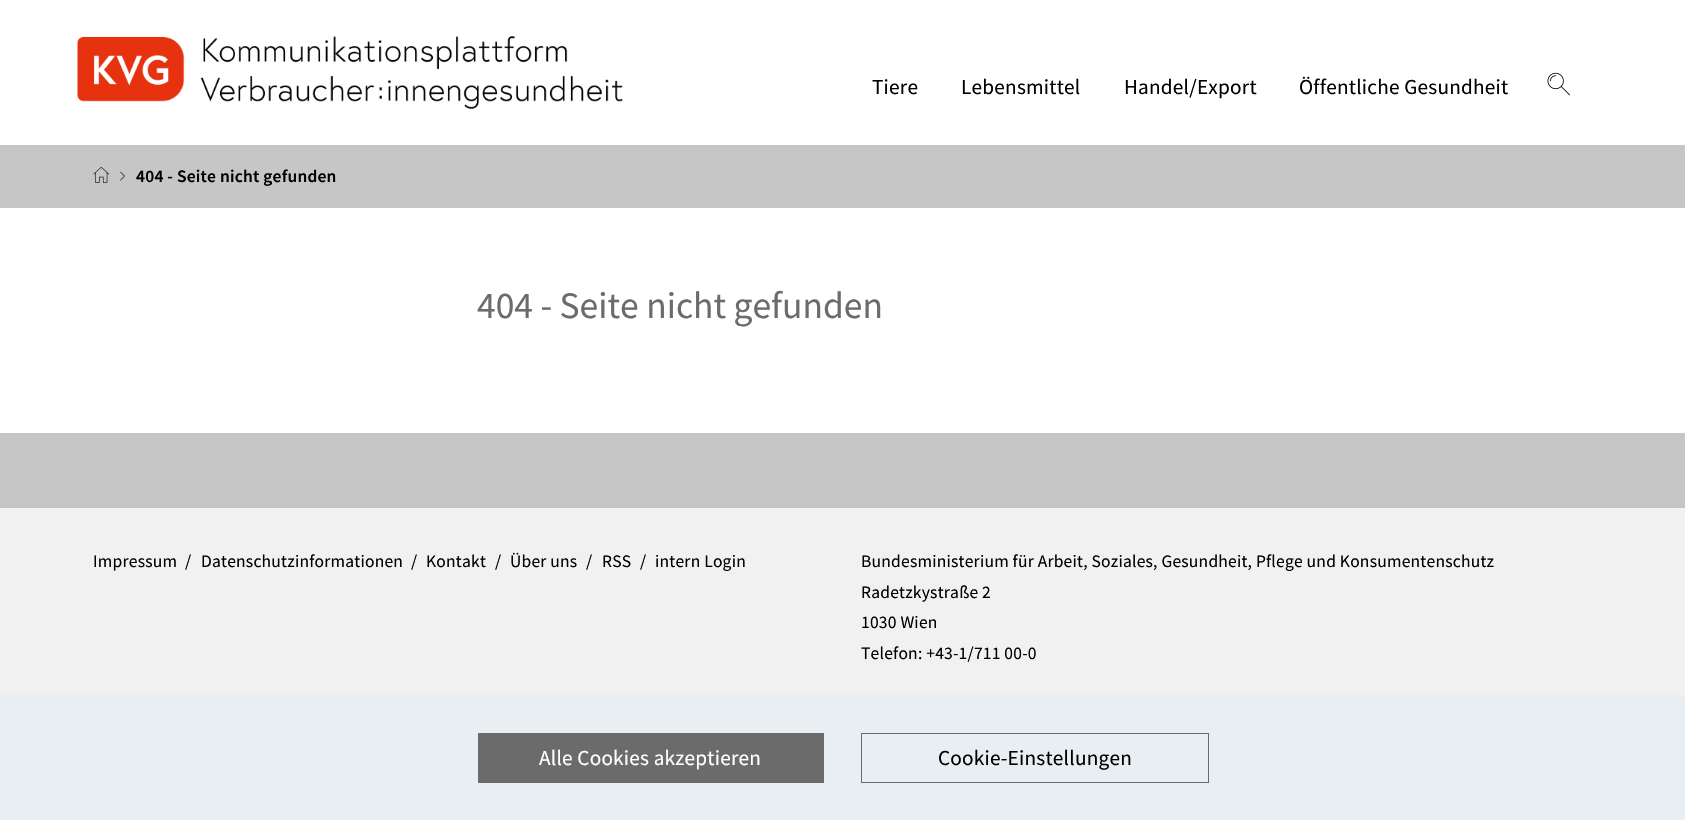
void draw(SkCanvas* c) {
SkPaint p;
p.setAntiAlias(true);
auto F=[&](const char* family, int weight, float size, bool italic = false){SkFontStyle style(weight, SkFontStyle::kNormal_Width,italic ? SkFontStyle::kItalic_Slant : SkFontStyle::kUpright_Slant);SkFont result(fontMgr->matchFamilyStyle(family, style), size);result.setSubpixel(true);return result;};
auto T=[&](const char* s, float x, float y, const SkFont& font){c->drawString(s, x, y, font, p);};
auto L=[&](const char* s, float x, float y, const SkFont& font, const SkPaint& ink, float letter, float word){std::vector<SkGlyphID> glyphs(font.countText(s, strlen(s), SkTextEncoding::kUTF8));std::vector<float> xs(glyphs.size());font.textToGlyphs(s, strlen(s), SkTextEncoding::kUTF8, glyphs);font.getXPos(glyphs, xs, x);float extra = 0;for (size_t i = 0; i < glyphs.size(); i++) {xs[i] += extra;extra += letter + word * (glyphs[i] == font.unicharToGlyph(' '));}c->drawTextBlob(SkTextBlob::MakeFromPosHGlyphs(glyphs, xs, y, font), 0, 0, ink);};
auto R=[&](float x, float y, float w, float h){c->drawRect(SkRect::MakeXYWH(x, y, w, h), p);};
auto I=[&](const char* path, float x, float y, float w, float h){auto image = SkImages::DeferredFromEncodedData(SkData::MakeFromFileName(path));c->drawImageRect(image, SkRect::MakeXYWH(x, y, w, h), SkSamplingOptions());};
c->clear(0xffffffff);
I("1.png",77,36,546,73);
auto f1 = F("Source Sans Pro",400,21.25);
p.setColor(0xff000000);
L("Tiere",872,94,f1,p,.22,0);
L("Lebensmittel",961,94,f1,p,.22,0);
L("Handel/Export",1124,94,f1,p,.22,0);
L("Öffentliche Gesundheit",1299,94,f1,p,.22,0);
I("2.png",1547,72,23,24);
p.setColor(0xffc6c6c6);
R(0,145,1685,63);
I("3.png",93,167,17,16);
I("4.png",120,171,5,10);
auto f2 = F("Source Sans Pro",600,17.5);
p.setColor(0xff000000);
L("404 - Seite nicht gefunden",136,182,f2,p,.22,0);
auto f3 = F("Source Sans Pro",400,37.5);
p.setColor(0xff6b6b6b);
T("404 - Seite nicht gefunden",477,318,f3);
p.setColor(0xffc6c6c6);
R(0,433,1685,75);
p.setColor(0xfff1f1f1);
R(0,508,1685,187);
auto f4 = F("Source Sans Pro",400,17.5);
p.setColor(0xff000000);
L("Impressum",93,567,f4,p,.22,0);
L("/",185,567,f4,p,.22,0);
L("Datenschutzinformationen",201,567,f4,p,.22,0);
L("/",411,567,f4,p,.22,0);
L("Kontakt",426,567,f4,p,.22,0);
L("/",495,567,f4,p,.22,0);
L("Über uns",510,567,f4,p,.22,0);
L("/",586,567,f4,p,.22,0);
L("RSS",602,567,f4,p,.22,0);
L("/",640,567,f4,p,.22,0);
L("intern Login",655,567,f4,p,.22,0);
L("Bundesministerium für Arbeit, Soziales, Gesundheit, Pflege und Konsumentenschutz",861,567,f4,p,.22,0);
L("Radetzkystraße 2",861,598,f4,p,.22,0);
L("1030 Wien",861,628,f4,p,.22,0);
L("Telefon: +43-1/711 00-0",861,659,f4,p,.22,0);
p.setColor(0xffe8eef1);
R(0,695,1685,125);
p.setColor(0xff6b6b6b);
R(478,733,346,50);
p.setColor(0xffffffff);
L("Alle Cookies akzeptieren",539,765,f1,p,.22,0);
p.setStroke(true);
p.setStrokeWidth(1);
p.setColor(0xff6b6b6b);
c->drawRect(SkRect::MakeXYWH(861.5,733.5,347,49),p);
p.setStroke(false);
p.setColor(0xff000000);
L("Cookie-Einstellungen",938,765,f1,p,.22,0);
}
